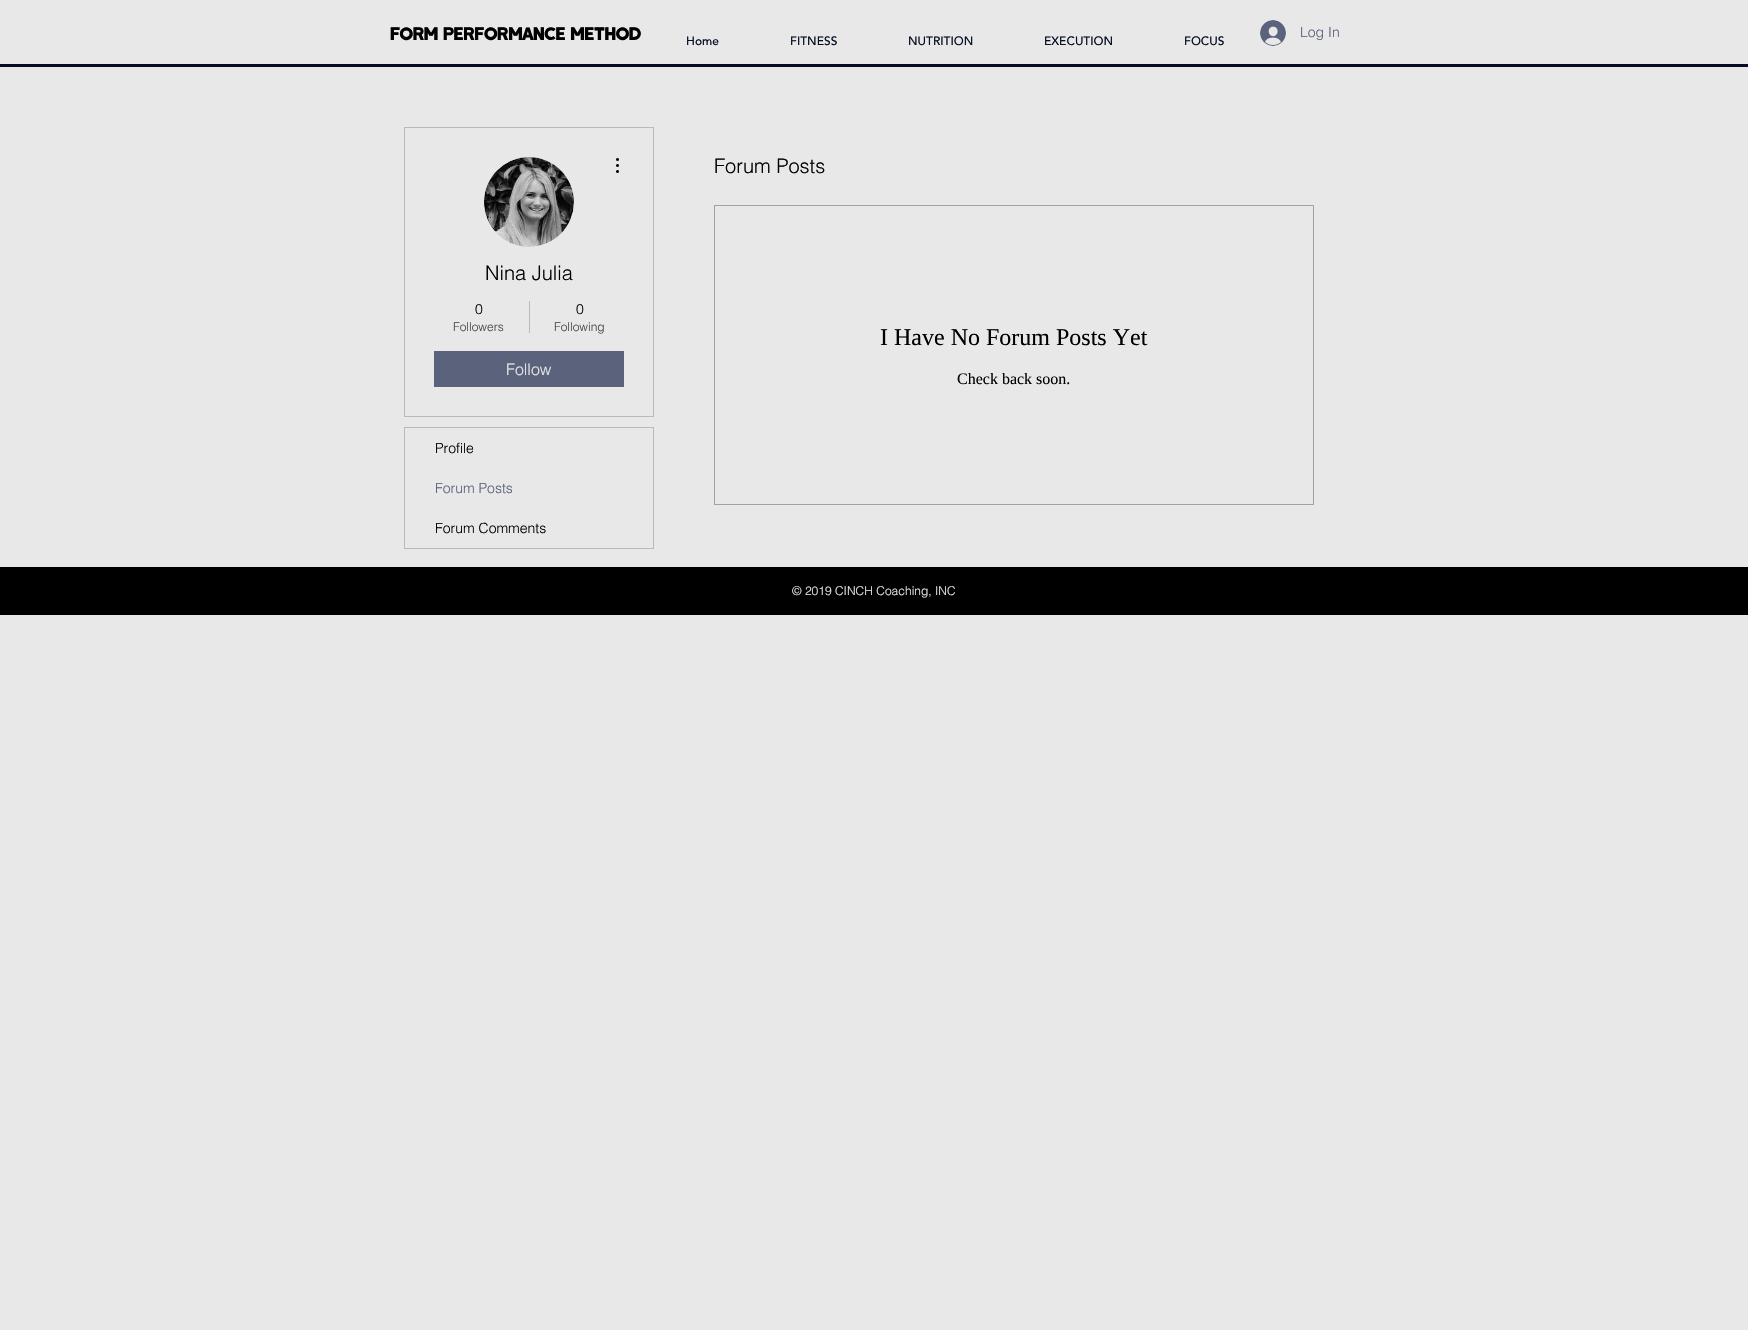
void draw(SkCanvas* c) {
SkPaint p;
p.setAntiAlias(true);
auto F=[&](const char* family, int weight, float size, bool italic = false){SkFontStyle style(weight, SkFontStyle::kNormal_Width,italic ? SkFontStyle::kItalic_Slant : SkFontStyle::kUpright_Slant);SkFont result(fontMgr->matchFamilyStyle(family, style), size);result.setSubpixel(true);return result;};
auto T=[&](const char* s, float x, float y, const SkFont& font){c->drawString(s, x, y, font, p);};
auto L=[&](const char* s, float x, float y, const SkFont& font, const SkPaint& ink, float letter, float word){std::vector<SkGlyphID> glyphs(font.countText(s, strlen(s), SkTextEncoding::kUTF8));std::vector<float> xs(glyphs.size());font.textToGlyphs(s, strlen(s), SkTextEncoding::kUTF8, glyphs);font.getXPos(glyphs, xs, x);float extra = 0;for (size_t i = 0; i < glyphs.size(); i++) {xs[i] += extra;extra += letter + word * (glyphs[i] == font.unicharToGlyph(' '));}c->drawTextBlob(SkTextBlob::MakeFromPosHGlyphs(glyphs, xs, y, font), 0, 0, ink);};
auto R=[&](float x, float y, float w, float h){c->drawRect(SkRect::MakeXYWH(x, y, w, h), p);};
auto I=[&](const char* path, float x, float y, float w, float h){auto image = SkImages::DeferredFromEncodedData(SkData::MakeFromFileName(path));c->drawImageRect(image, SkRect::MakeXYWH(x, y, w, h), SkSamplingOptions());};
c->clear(0xffe8e8e8);
auto f1 = F("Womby",400,18);
p.setColor(0xff000000);
L("FORM PERFORMANCE METHOD",390,40,f1,p,-.4,0);
auto f2 = F("Avenir",500,12);
p.setColor(0xff060e25);
T("Home",686,45,f2);
T("FITNESS",790,45,f2);
T("NUTRITION",908,45,f2);
T("EXECUTION",1044,45,f2);
T("FOCUS",1184,45,f2);
I("1.png",1260,20,26,26);
auto f3 = F("helvetica",300,14);
p.setColor(0xff5a627c);
T("Log In",1300,37,f3);
p.setColor(0xff060e25);
R(0,64,1748,3);
p.setStroke(true);
p.setStrokeWidth(1);
p.setColor(0xffbababa);
c->drawRect(SkRect::MakeXYWH(404.5,127.5,249,289),p);
p.setStroke(false);
p.setColor(0xffd8d8d8);
c->drawCircle(529,202,45,p);
I("2.png",484,157,90,90);
I("3.png",616,158,3,15);
auto f4 = F("helvetica",300,20);
p.setColor(0xff000000);
T("Nina Julia",485,280,f4);
T("0",475,314,f3);
auto f5 = F("helvetica",300,12);
p.setColor(0xff464646);
T("Followers",453,331,f5);
p.setColor(0xffbababa);
R(529,301,1,32);
p.setColor(0xff000000);
T("0",576,314,f3);
p.setColor(0xff464646);
T("Following",554,331,f5);
p.setColor(0xff5a627c);
R(434,351,190,36);
auto f6 = F("helvetica",300,16);
p.setColor(0xffe8e8e8);
T("Follow",506,375,f6);
p.setStroke(true);
p.setColor(0xffbababa);
c->drawRect(SkRect::MakeXYWH(404.5,427.5,249,121),p);
p.setStroke(false);
p.setColor(0xff000000);
T("Profile",435,453,f3);
p.setColor(0xff5a627c);
T("Forum Posts",435,493,f3);
p.setColor(0xff000000);
T("Forum Comments",435,533,f3);
T("Forum Posts",714,173,f4);
p.setStroke(true);
p.setColor(0xffa2a2a2);
c->drawRect(SkRect::MakeXYWH(714.5,205.5,599,299),p);
auto f7 = F("Liberation Serif",400,24);
p.setStroke(false);
p.setColor(0xff000000);
T("I Have No Forum Posts Yet",880,345,f7);
auto f8 = F("Liberation Serif",400,16);
T("Check back soon.",957,384,f8);
R(0,567,1748,48);
p.setColor(0xffe8e8e8);
T("© 2019 CINCH Coaching, INC",792,595,f5);
}
